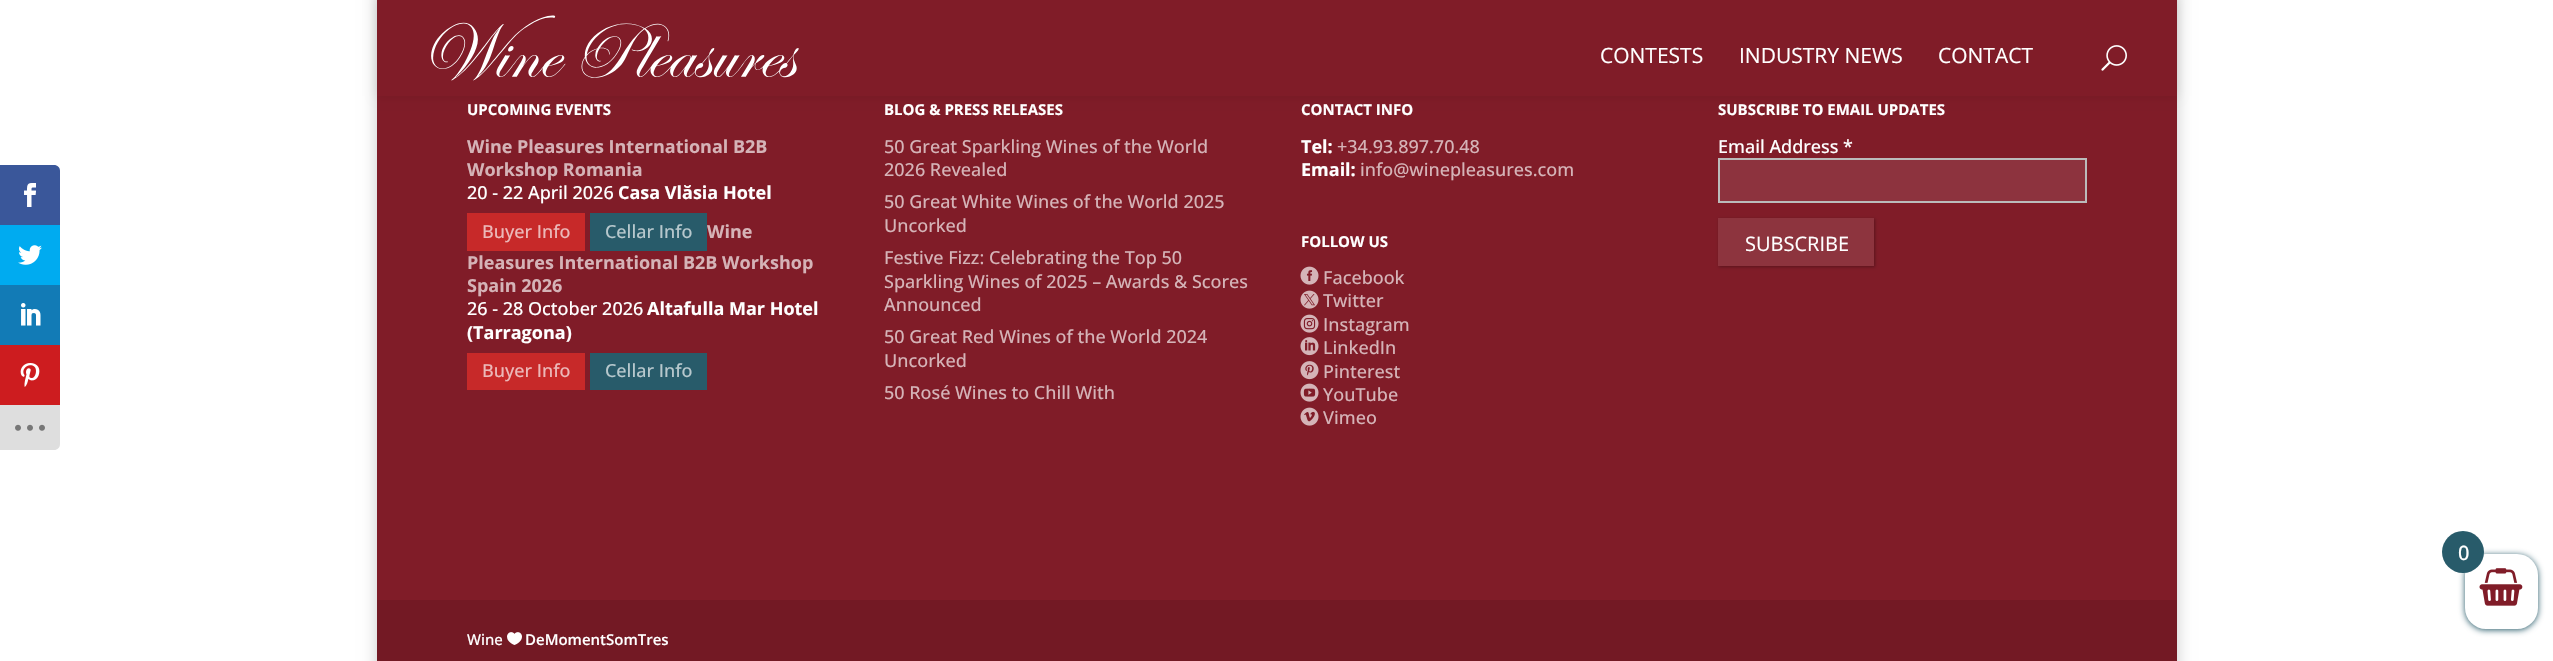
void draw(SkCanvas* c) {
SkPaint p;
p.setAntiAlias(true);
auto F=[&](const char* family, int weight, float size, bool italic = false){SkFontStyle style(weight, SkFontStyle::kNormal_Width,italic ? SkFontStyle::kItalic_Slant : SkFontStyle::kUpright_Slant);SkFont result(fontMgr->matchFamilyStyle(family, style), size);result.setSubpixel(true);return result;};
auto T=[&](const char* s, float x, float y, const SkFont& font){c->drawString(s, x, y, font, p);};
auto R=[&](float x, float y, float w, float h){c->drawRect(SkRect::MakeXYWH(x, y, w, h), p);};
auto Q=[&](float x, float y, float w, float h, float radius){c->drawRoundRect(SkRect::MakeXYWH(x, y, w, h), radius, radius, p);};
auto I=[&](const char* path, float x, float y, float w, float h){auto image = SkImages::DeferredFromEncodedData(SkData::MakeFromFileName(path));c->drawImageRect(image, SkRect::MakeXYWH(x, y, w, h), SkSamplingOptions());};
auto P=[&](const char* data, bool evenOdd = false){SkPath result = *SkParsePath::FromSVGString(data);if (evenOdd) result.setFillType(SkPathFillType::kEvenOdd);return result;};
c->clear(0xffffffff);
p.setColor(0xff3a579a);
c->drawPath(P("M0 165h54c3.5 0 6 2.5 6 6v54h-60z"),p);
I("1.png",24,183,12,24);
p.setColor(0xff00abf0);
R(0,225,60,60);
I("2.png",18,245,24,20);
p.setColor(0xff127bb6);
R(0,285,60,60);
I("3.png",21,303,20,23);
p.setColor(0xffcd1c1f);
R(0,345,60,60);
I("4.png",20,363,20,24);
p.setColor(0xffdedede);
c->drawPath(P("M0 405h60v39c0 3.5-2.5 6-6 6h-54z"),p);
I("5.png",15,424,30,7);
p.setColor(0x33000000);
p.setMaskFilter(SkMaskFilter::MakeBlur(kNormal_SkBlurStyle, 7.5));
c->drawRect(SkRect::MakeXYWH(377,-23,1800,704),p);
p.setMaskFilter(nullptr);
p.setColor(0xff801c28);
R(377,96,1800,504);
p.setColor(0x1a000000);
p.setMaskFilter(SkMaskFilter::MakeBlur(kNormal_SkBlurStyle, 5));
c->drawRect(SkRect::MakeXYWH(377,0,1800,96),p);
p.setMaskFilter(nullptr);
p.setColor(0xff801c28);
R(377,0,1800,96);
I("6.png",431,15,368,66);
auto f1 = F("Open Sans",400,21);
p.setColor(0xffffffff);
T("CONTESTS",1600,63,f1);
T("INDUSTRY NEWS",1739,63,f1);
T("CONTACT",1938,63,f1);
I("7.png",2101,45,26,26);
auto f2 = F("Open Sans",700,15);
T("UPCOMING EVENTS",467,115,f2);
auto f3 = F("Open Sans",700,18);
p.setColor(0xffd5b3b7);
T("Wine Pleasures International B2B",467,153,f3);
T("Workshop Romania",467,176,f3);
auto f4 = F("Open Sans",500,18);
p.setColor(0xffffffff);
T("20 - 22 April 2026",467,199,f4);
T("Casa Vlăsia Hotel",618,199,f3);
p.setColor(0xffc72929);
R(467,213,118,38);
p.setColor(0xffecb8b8);
T("Buyer Info",482,238,f4);
p.setColor(0xff285b6a);
R(590,213,117,38);
p.setColor(0xffb7c8cd);
T("Cellar Info",605,238,f4);
p.setColor(0xffd5b3b7);
T("Wine",707,238,f3);
T("Pleasures International B2B Workshop",467,269,f3);
T("Spain 2026",467,292,f3);
p.setColor(0xffffffff);
T("26 - 28 October 2026",467,315,f4);
T("Altafulla Mar Hotel",647,315,f3);
T("(Tarragona)",467,339,f3);
p.setColor(0xffc72929);
R(467,353,118,37);
p.setColor(0xffecb8b8);
T("Buyer Info",482,377,f4);
p.setColor(0xff285b6a);
R(590,353,117,37);
p.setColor(0xffb7c8cd);
T("Cellar Info",605,377,f4);
p.setColor(0xffffffff);
T("BLOG & PRESS RELEASES",884,115,f2);
p.setColor(0xffd5b3b7);
T("50 Great Sparkling Wines of the World",884,153,f4);
T("2026 Revealed",884,176,f4);
T("50 Great White Wines of the World 2025",884,208,f4);
T("Uncorked",884,232,f4);
T("Festive Fizz: Celebrating the Top 50",884,264,f4);
T("Sparkling Wines of 2025 – Awards & Scores",884,288,f4);
T("Announced",884,311,f4);
T("50 Great Red Wines of the World 2024",884,343,f4);
T("Uncorked",884,367,f4);
T("50 Rosé Wines to Chill With",884,399,f4);
p.setColor(0xffffffff);
T("CONTACT INFO",1301,115,f2);
T("Tel:",1301,153,f3);
p.setColor(0xffd5b3b7);
T("+34.93.897.70.48",1337,153,f4);
p.setColor(0xffffffff);
T("Email:",1301,176,f3);
p.setColor(0xffd5b3b7);
T("info@winepleasures.com",1360,176,f4);
p.setColor(0xffffffff);
T("FOLLOW US",1301,247,f2);
I("8.png",1300,266,19,19);
p.setColor(0xffd5b3b7);
T("Facebook",1323,284,f4);
I("9.png",1300,290,19,19);
T("Twitter",1323,307,f4);
I("10.png",1300,314,19,19);
T("Instagram",1323,331,f4);
I("11.png",1300,337,19,19);
T("LinkedIn",1323,354,f4);
I("12.png",1300,361,19,19);
T("Pinterest",1323,378,f4);
I("13.png",1300,383,19,19);
T("YouTube",1323,401,f4);
I("14.png",1300,407,19,19);
T("Vimeo",1323,424,f4);
p.setColor(0xffffffff);
T("SUBSCRIBE TO EMAIL UPDATES",1718,115,f2);
T("Email Address *",1718,153,f4);
p.setColor(0xff8d333e);
c->drawRect(SkRect::MakeXYWH(1719,159,367,43),p);
p.setStroke(true);
p.setStrokeWidth(2);
p.setColor(0xffbbbbbb);
c->drawRect(SkRect::MakeXYWH(1719,159,367,43),p);
c->save();
c->clipPath(P("M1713 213h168v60h-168zm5 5h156v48h-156z",true),true);
p.setStroke(false);
p.setColor(0x4d000000);
p.setMaskFilter(SkMaskFilter::MakeBlur(kNormal_SkBlurStyle, 1.5));
c->drawRect(SkRect::MakeXYWH(1719,219,156,48),p);
p.setMaskFilter(nullptr);
c->restore();
p.setColor(0x1affffff);
R(1718,218,156,48);
auto f5 = F("Open Sans",400,20);
p.setColor(0xffffffff);
T("SUBSCRIBE",1745,251,f5);
p.setColor(0xff731924);
R(377,600,1800,61);
auto f6 = F("Open Sans",500,15);
p.setColor(0xffffffff);
T("Wine",467,645,f6);
I("15.png",507,632,15,13);
auto f7 = F("Open Sans",600,15);
T("DeMomentSomTres",525,645,f7);
p.setColor(0xff285b6a);
p.setMaskFilter(SkMaskFilter::MakeBlur(kNormal_SkBlurStyle, 3));
c->drawRoundRect(SkRect::MakeXYWH(2465,555,73,75),21,21,p);
p.setMaskFilter(nullptr);
p.setColor(0xffffffff);
Q(2465,554,73,75,21);
I("16.png",2479,568,44,38);
p.setColor(0xff285b6a);
c->drawCircle(2463,552,21,p);
auto f8 = F("Open Sans",500,20);
p.setColor(0xffffffff);
T("0",2458,560,f8);
}
